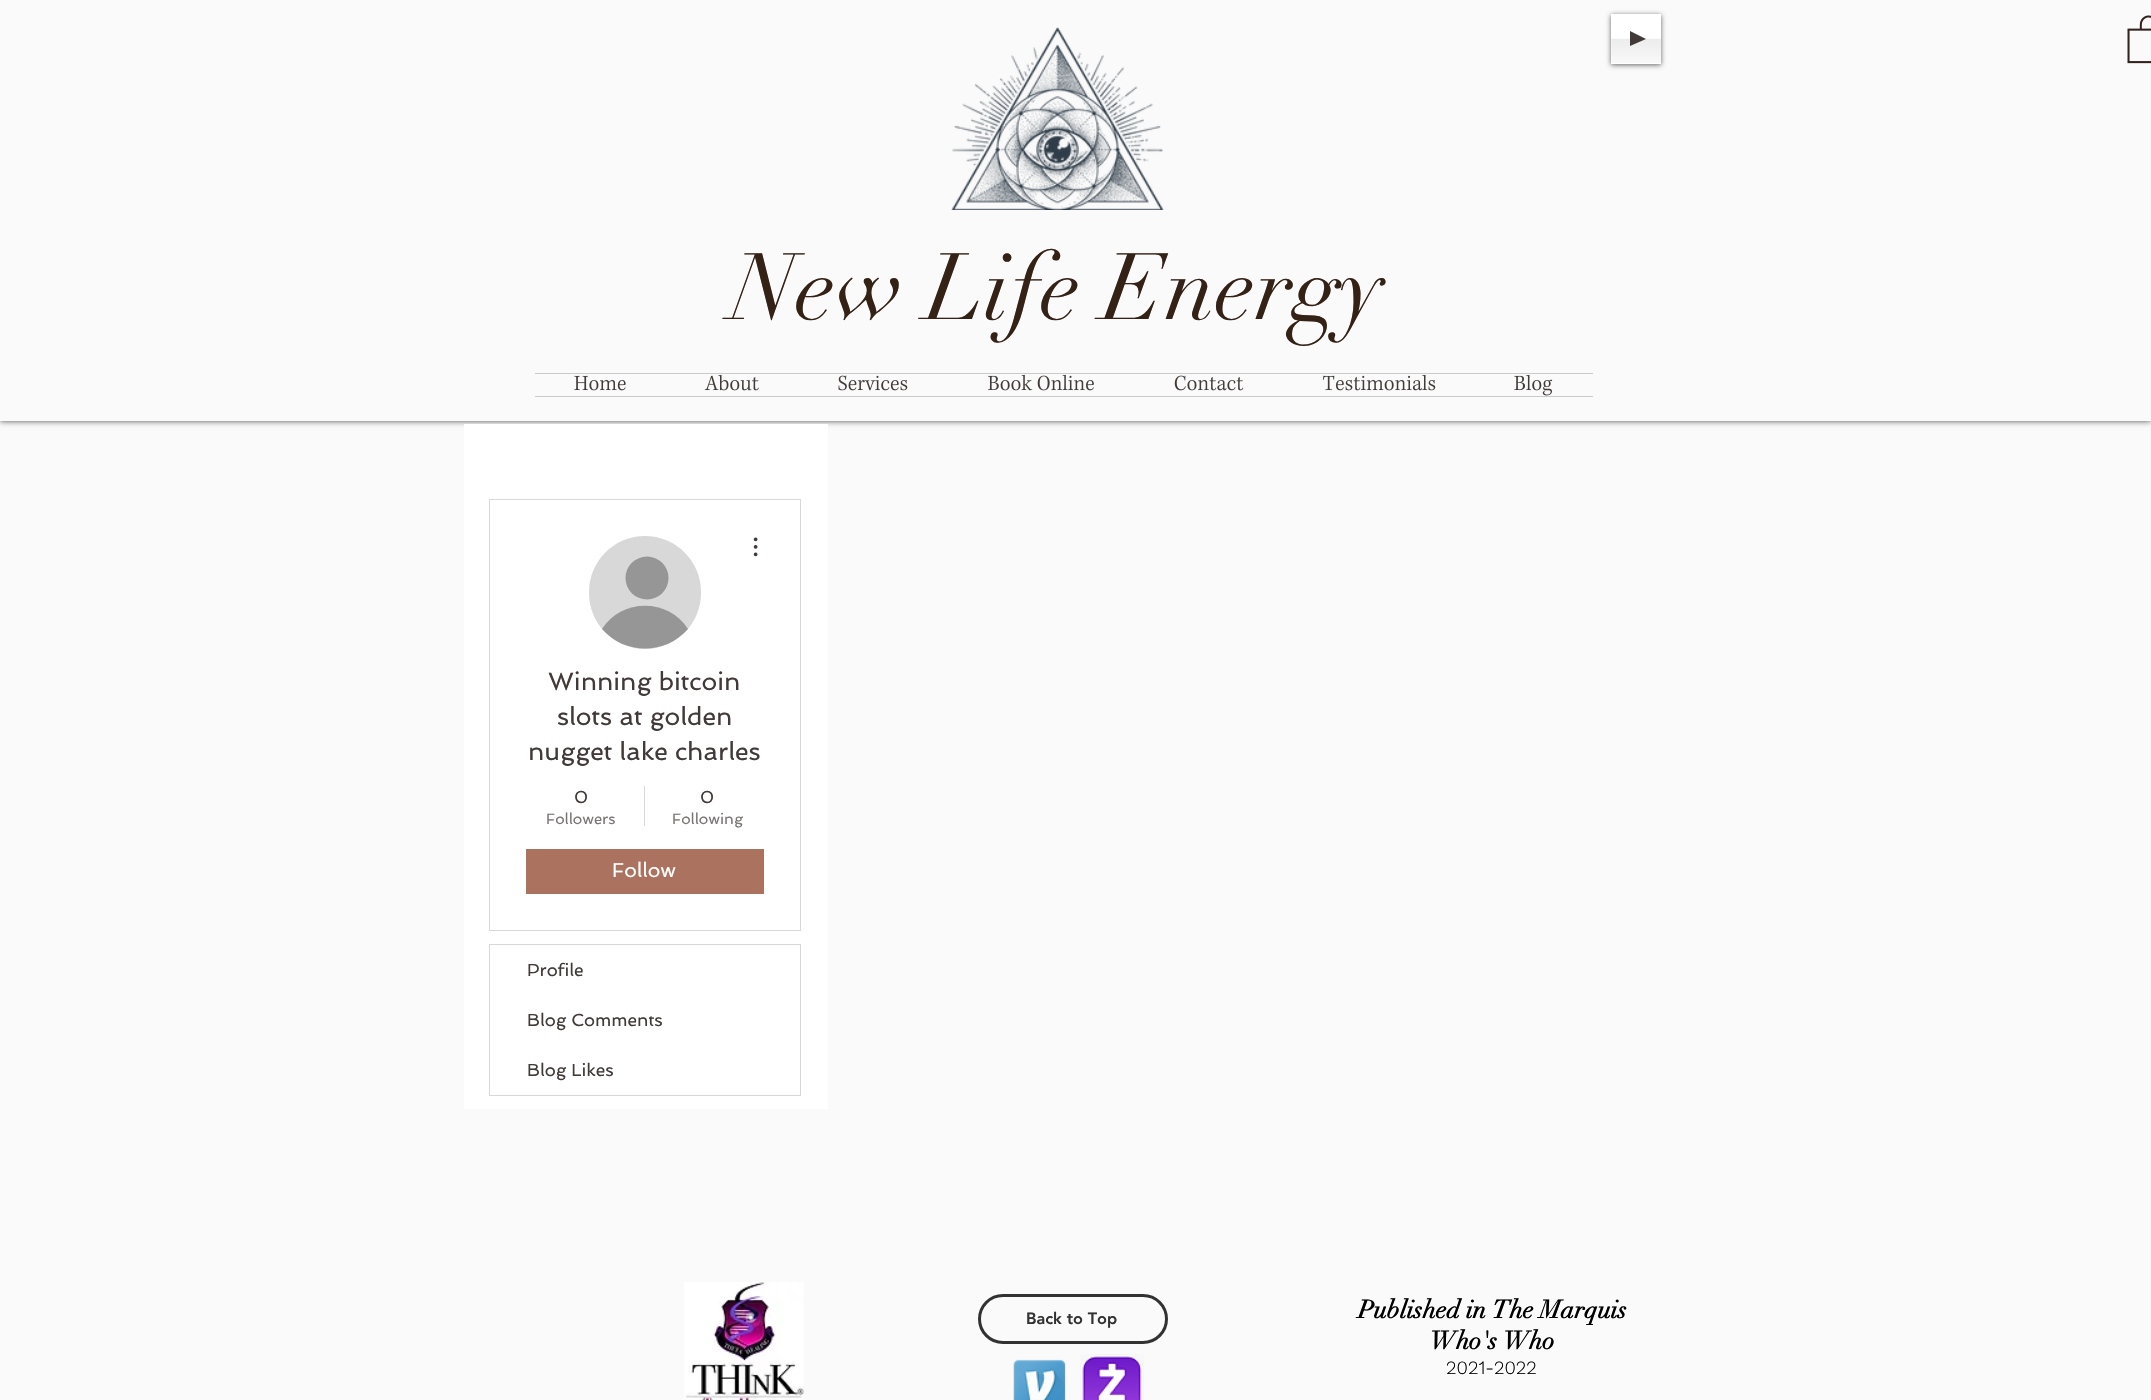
void draw(SkCanvas* c) {
SkPaint p;
p.setAntiAlias(true);
auto F=[&](const char* family, int weight, float size, bool italic = false){SkFontStyle style(weight, SkFontStyle::kNormal_Width,italic ? SkFontStyle::kItalic_Slant : SkFontStyle::kUpright_Slant);SkFont result(fontMgr->matchFamilyStyle(family, style), size);result.setSubpixel(true);return result;};
auto T=[&](const char* s, float x, float y, const SkFont& font){c->drawString(s, x, y, font, p);};
auto R=[&](float x, float y, float w, float h){c->drawRect(SkRect::MakeXYWH(x, y, w, h), p);};
auto Q=[&](float x, float y, float w, float h, float radius){c->drawRoundRect(SkRect::MakeXYWH(x, y, w, h), radius, radius, p);};
auto I=[&](const char* path, float x, float y, float w, float h){auto image = SkImages::DeferredFromEncodedData(SkData::MakeFromFileName(path));c->drawImageRect(image, SkRect::MakeXYWH(x, y, w, h), SkSamplingOptions());};
auto P=[&](const char* data, bool evenOdd = false){SkPath result = *SkParsePath::FromSVGString(data);if (evenOdd) result.setFillType(SkPathFillType::kEvenOdd);return result;};
c->clear(0xfffafafa);
p.setColor(0xb3000000);
p.setMaskFilter(SkMaskFilter::MakeBlur(kNormal_SkBlurStyle, 3));
c->drawRect(SkRect::MakeXYWH(0,0,2151,421),p);
p.setMaskFilter(nullptr);
p.setColor(0xfffafafa);
R(0,0,2151,421);
I("1.png",951,27,213,183);
p.setColor(0x99000000);
p.setMaskFilter(SkMaskFilter::MakeBlur(kNormal_SkBlurStyle, 2.5));
c->drawRect(SkRect::MakeXYWH(1611,15,50,50),p);
p.setMaskFilter(nullptr);
p.setColor(0xffffffff);
R(1611,14,50,50);
I("2.png",1611,38,50,25);
p.setColor(0xff413a38);
c->drawPath(P("M1630 46v-15l16 8z"),p);
I("3.png",2127,15,24,49);
auto f1 = F("didot",400,92.5);
p.setColor(0xff342216);
T("New Life Energy",731,319,f1);
p.setColor(0xffcacaca);
R(535,373,1058,1);
R(535,396,1058,1);
I("4.png",574,375,52,16);
I("5.png",704,374,55,17);
I("6.png",838,375,70,16);
I("7.png",988,374,106,17);
I("8.png",1174,375,70,16);
I("9.png",1322,374,114,17);
I("10.png",1514,374,39,22);
p.setColor(0xffffffff);
R(464,424,364,685);
p.setStroke(true);
p.setStrokeWidth(1);
p.setColor(0xffd9d8d7);
c->drawRect(SkRect::MakeXYWH(489.5,499.5,311,431),p);
p.setStroke(false);
p.setColor(0xffd8d8d8);
Q(589,536,112,113,56);
p.setColor(0xff969696);
c->drawCircle(647,578,21.5,p);
c->drawPath(P("M688 629c-23 26-63 26-86 0c20-31 66-31 86 0z"),p);
I("11.png",753,537,5,20);
auto f2 = F("Spinnaker",400,25);
p.setColor(0xff413a38);
T("Winning bitcoin",548,690,f2);
T("slots at golden",557,725,f2);
T("nugget lake charles",528,760,f2);
auto f3 = F("Spinnaker",400,17.5);
T("0",574,803,f3);
auto f4 = F("Spinnaker",400,15);
p.setColor(0xff7a7574);
T("Followers",546,824,f4);
p.setColor(0xffd9d8d7);
R(644,786,1,40);
p.setColor(0xff413a38);
T("0",700,803,f3);
p.setColor(0xff7a7574);
T("Following",672,824,f4);
p.setColor(0xffab7260);
R(526,849,238,45);
auto f5 = F("Spinnaker",400,20);
p.setColor(0xffffffff);
T("Follow",612,877,f5);
p.setStroke(true);
p.setColor(0xffd9d8d7);
c->drawRect(SkRect::MakeXYWH(489.5,944.5,311,151),p);
p.setStroke(false);
p.setColor(0xff413a38);
T("Profile",527,976,f3);
T("Blog Comments",527,1026,f3);
T("Blog Likes",527,1076,f3);
I("12.png",684,1282,120,118);
p.setStroke(true);
p.setStrokeWidth(3);
p.setColor(0xff323232);
c->drawRoundRect(SkRect::MakeXYWH(979.5,1295.5,187,47),23.5,23.5,p);
auto f6 = F("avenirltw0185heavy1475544",900,16.25);
p.setStroke(false);
T("Back to Top",1026,1324,f6);
I("13.png",1013,1359,53,41);
I("14.png",1080,1354,64,46);
auto f7 = F("didot",700,25);
p.setColor(0xff000000);
T("Published in The Marquis",1358,1318,f7);
T("Who's Who",1430,1349,f7);
auto f8 = F("Work Sans",300,18.75);
T("2021-2022",1446,1374,f8);
}
